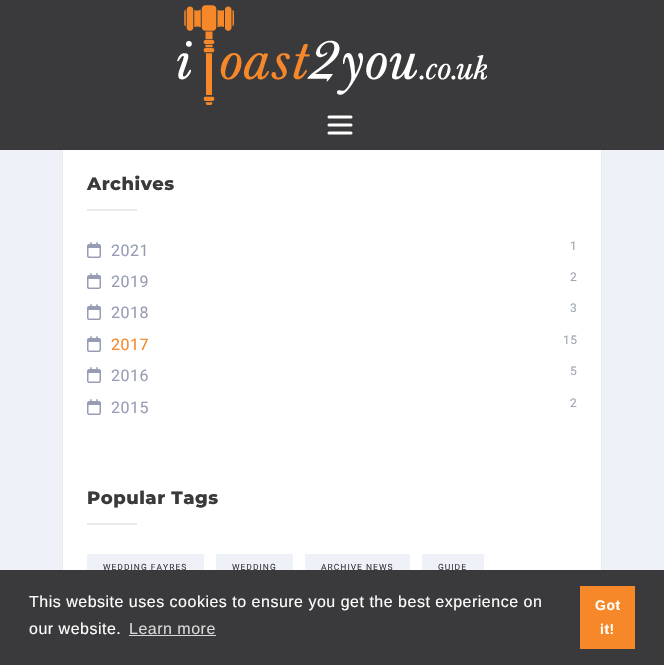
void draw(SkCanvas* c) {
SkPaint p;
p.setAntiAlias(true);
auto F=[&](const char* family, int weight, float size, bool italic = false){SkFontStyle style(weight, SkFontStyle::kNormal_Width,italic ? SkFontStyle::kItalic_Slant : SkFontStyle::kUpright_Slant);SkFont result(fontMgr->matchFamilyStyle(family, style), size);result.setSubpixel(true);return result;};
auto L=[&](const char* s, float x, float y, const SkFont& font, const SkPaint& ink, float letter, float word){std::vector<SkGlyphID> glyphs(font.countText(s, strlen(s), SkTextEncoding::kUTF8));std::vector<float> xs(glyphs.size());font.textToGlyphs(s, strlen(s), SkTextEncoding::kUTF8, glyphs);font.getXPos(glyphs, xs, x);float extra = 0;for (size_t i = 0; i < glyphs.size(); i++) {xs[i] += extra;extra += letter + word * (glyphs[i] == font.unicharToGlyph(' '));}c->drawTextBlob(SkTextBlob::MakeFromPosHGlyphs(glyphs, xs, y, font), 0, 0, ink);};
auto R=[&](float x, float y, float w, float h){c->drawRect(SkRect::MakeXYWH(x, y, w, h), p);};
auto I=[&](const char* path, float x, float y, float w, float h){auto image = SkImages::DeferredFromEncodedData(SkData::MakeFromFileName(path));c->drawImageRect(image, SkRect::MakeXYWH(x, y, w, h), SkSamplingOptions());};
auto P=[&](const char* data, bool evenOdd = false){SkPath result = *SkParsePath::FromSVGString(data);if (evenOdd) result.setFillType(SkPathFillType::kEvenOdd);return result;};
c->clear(0xffeff1f8);
p.setColor(0xffffffff);
R(63,150,538,420);
p.setStroke(true);
p.setStrokeWidth(1);
p.setColor(0xffebebeb);
c->drawRect(SkRect::MakeXYWH(62.5,-.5,539,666),p);
p.setStroke(false);
p.setColor(0xff3a3a3c);
R(0,0,664,150);
I("1.png",177,5,310,100);
p.setStroke(true);
p.setStrokeWidth(3);
p.setStrokeCap(SkPaint::kRound_Cap);
p.setColor(0xffffffff);
c->drawPath(P("M329 117h22m-22 8h22m-22 8h22"),p);
auto f1 = F("Montserrat",800,18);
p.setStroke(false);
p.setColor(0xff3a3a3c);
L("Archives",87,190,f1,p,.5,0);
p.setColor(0xffebebec);
R(87,209,50,2);
I("2.png",87,242,14,16);
auto f2 = F("Roboto",400,16);
p.setColor(0xff969cb3);
L("2021",111,256,f2,p,.5,0);
auto f3 = F("Roboto",400,12);
p.setColor(0xff9fa7af);
L("1",570,250,f3,p,.5,0);
I("2.png",87,273,14,16);
p.setColor(0xff969cb3);
L("2019",111,287,f2,p,.5,0);
p.setColor(0xff9fa7af);
L("2",570,281,f3,p,.5,0);
I("2.png",87,304,14,16);
p.setColor(0xff969cb3);
L("2018",111,318,f2,p,.5,0);
p.setColor(0xff9fa7af);
L("3",570,312,f3,p,.5,0);
I("2.png",87,336,14,16);
p.setColor(0xfff6882a);
L("2017",111,350,f2,p,.5,0);
p.setColor(0xff9fa7af);
L("15",563,344,f3,p,.5,0);
I("2.png",87,367,14,16);
p.setColor(0xff969cb3);
L("2016",111,381,f2,p,.5,0);
p.setColor(0xff9fa7af);
L("5",570,375,f3,p,.5,0);
I("2.png",87,399,14,16);
p.setColor(0xff969cb3);
L("2015",111,413,f2,p,.5,0);
p.setColor(0xff9fa7af);
L("2",570,407,f3,p,.5,0);
p.setColor(0xff3a3a3c);
L("Popular Tags",87,504,f1,p,.5,0);
p.setColor(0xffebebec);
R(87,523,50,2);
p.setColor(0xffeff1f8);
R(87,554,117,16);
auto f4 = F("Roboto",400,8.5);
p.setColor(0xff3a3a3c);
L("WEDDING FAYRES",103,570,f4,p,1,0);
p.setColor(0xffeff1f8);
R(216,554,77,16);
p.setColor(0xff3a3a3c);
L("WEDDING",232,570,f4,p,1,0);
p.setColor(0xffeff1f8);
R(305,554,105,16);
p.setColor(0xff3a3a3c);
L("ARCHIVE NEWS",321,570,f4,p,1,0);
p.setColor(0xffeff1f8);
R(422,554,62,16);
p.setColor(0xff3a3a3c);
L("GUIDE",438,570,f4,p,1,0);
R(0,570,664,95);
auto f5 = F("Liberation Sans",400,16);
p.setColor(0xffffffff);
L("This website uses cookies to ensure you get the best experience on",29,607,f5,p,.5,0);
L("our website.",29,634,f5,p,.5,0);
p.setColor(0xffd8d8d8);
L("Learn more",129,634,f5,p,.5,0);
R(129,635,87,1);
p.setColor(0xfff6882a);
R(580,586,55,63);
auto f6 = F("Liberation Sans",700,14);
p.setColor(0xffffffff);
L("Got",595,610,f6,p,.5,0);
L("it!",600,634,f6,p,.5,0);
}
